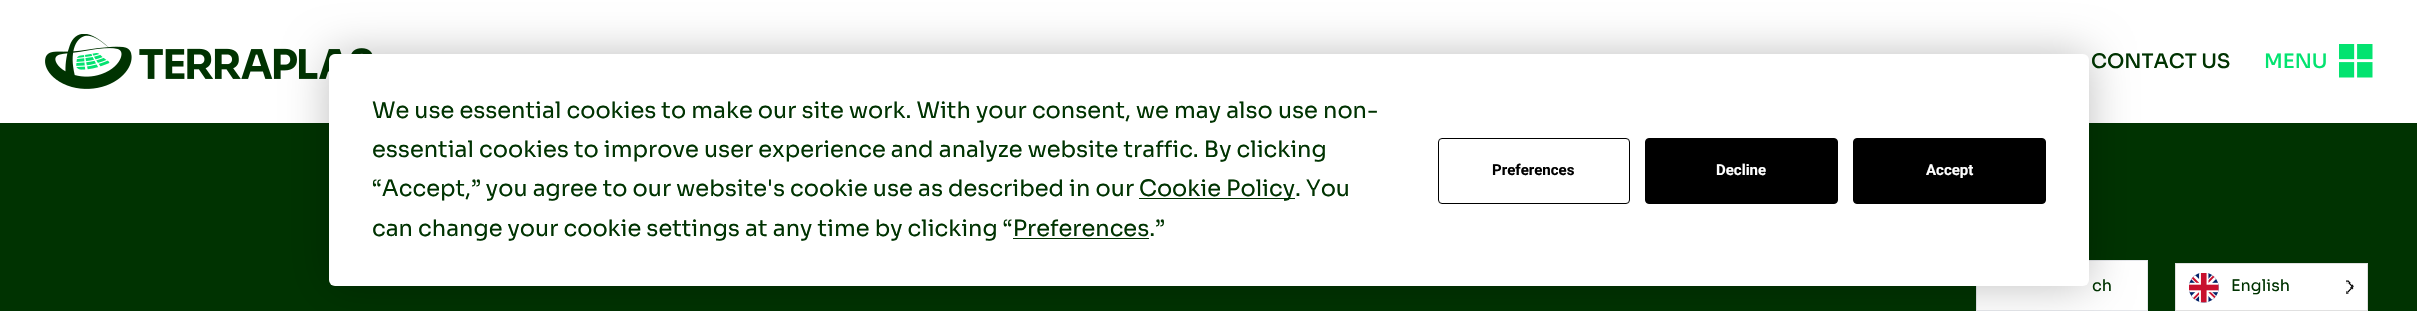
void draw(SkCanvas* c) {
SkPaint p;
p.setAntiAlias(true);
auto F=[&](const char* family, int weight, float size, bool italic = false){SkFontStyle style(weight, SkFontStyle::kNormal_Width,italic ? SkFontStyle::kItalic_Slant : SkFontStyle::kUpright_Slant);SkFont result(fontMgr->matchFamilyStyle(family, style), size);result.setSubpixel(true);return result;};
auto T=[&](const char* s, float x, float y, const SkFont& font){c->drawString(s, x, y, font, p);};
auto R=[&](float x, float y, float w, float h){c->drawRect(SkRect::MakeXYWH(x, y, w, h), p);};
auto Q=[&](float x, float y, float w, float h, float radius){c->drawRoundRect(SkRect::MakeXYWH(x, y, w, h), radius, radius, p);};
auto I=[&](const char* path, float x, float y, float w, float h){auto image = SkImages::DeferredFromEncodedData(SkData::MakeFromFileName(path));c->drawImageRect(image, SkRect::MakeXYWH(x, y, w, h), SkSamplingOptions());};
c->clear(0xff003301);
p.setColor(0xffffffff);
R(0,0,2417,123);
I("1.png",45,34,328,55);
c->drawRect(SkRect::MakeXYWH(1976.5,260.5,171,50),p);
p.setStroke(true);
p.setStrokeWidth(1);
p.setColor(0xffe5e7eb);
c->drawRect(SkRect::MakeXYWH(1976.5,260.5,171,50),p);
p.setStroke(false);
p.setColor(0x40000000);
p.setMaskFilter(SkMaskFilter::MakeBlur(kNormal_SkBlurStyle, 22));
c->drawRoundRect(SkRect::MakeXYWH(329,54,1760,232),6,6,p);
p.setMaskFilter(nullptr);
p.setColor(0xffffffff);
Q(329,54,1760,232,6);
auto f1 = F("Sora",400,22.5);
p.setColor(0xff003301);
T("We use essential cookies to make our site work. With your consent, we may also use non-",372,118,f1);
T("essential cookies to improve user experience and analyze website traffic. By clicking",372,157,f1);
T("“Accept,” you agree to our website's cookie use as described in our",372,196,f1);
R(1139,198,156,1);
T("Cookie Policy. You",1139,196,f1);
T("can change your cookie settings at any time by clicking “Preferences.”",372,236,f1);
R(1013,238,136,1);
p.setStroke(true);
p.setColor(0xff000000);
c->drawRoundRect(SkRect::MakeXYWH(1438.5,138.5,191,65),3.5,3.5,p);
auto f2 = F("Roboto",700,15);
p.setStroke(false);
T("Preferences",1492,175,f2);
c->drawRoundRect(SkRect::MakeXYWH(1645.5,138.5,192,65),3.5,3.5,p);
p.setStroke(true);
c->drawRoundRect(SkRect::MakeXYWH(1645.5,138.5,192,65),3.5,3.5,p);
p.setStroke(false);
p.setColor(0xffffffff);
T("Decline",1716,175,f2);
p.setColor(0xff000000);
c->drawRoundRect(SkRect::MakeXYWH(1853.5,138.5,192,65),3.5,3.5,p);
p.setStroke(true);
c->drawRoundRect(SkRect::MakeXYWH(1853.5,138.5,192,65),3.5,3.5,p);
p.setStroke(false);
p.setColor(0xffffffff);
T("Accept",1926,175,f2);
auto f3 = F("Sora",500,20);
p.setColor(0xff003301);
T("CONTACT US",2091,68,f3);
p.setColor(0xff03e370);
T("MENU",2264,68,f3);
I("2.png",2339,44,34,34);
auto f4 = F("Sora",400,16);
p.setColor(0xff003301);
T("ch",2092,291,f4);
p.setColor(0xffffffff);
c->drawRect(SkRect::MakeXYWH(2175.5,263.5,192,47),p);
p.setStroke(true);
p.setColor(0xffe0e0e0);
c->drawRect(SkRect::MakeXYWH(2175.5,263.5,192,47),p);
I("3.png",2189,273,30,30);
p.setStroke(false);
p.setColor(0xff003301);
T("English",2231,291,f4);
I("4.png",2346,280,8,14);
}
